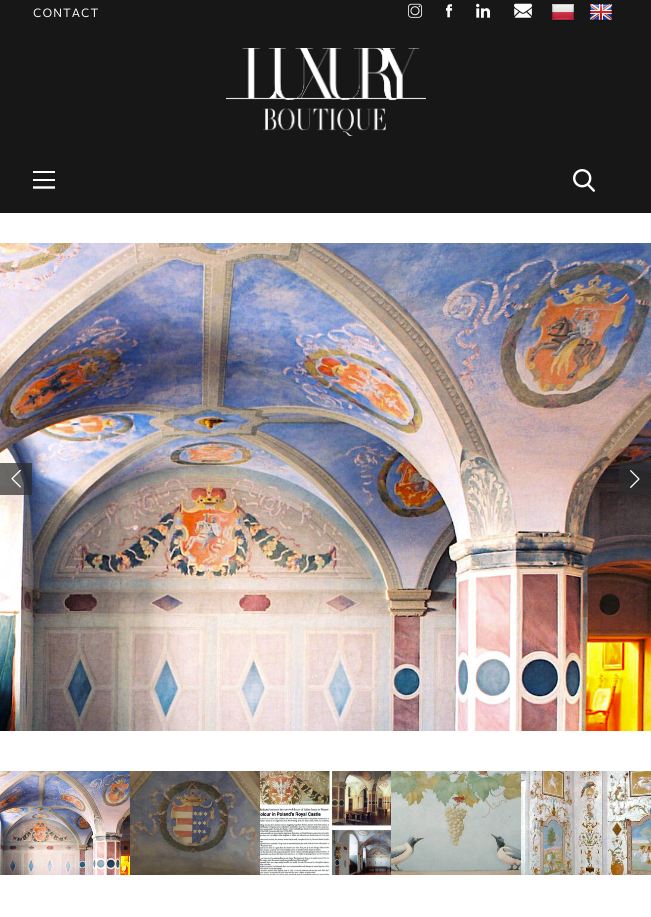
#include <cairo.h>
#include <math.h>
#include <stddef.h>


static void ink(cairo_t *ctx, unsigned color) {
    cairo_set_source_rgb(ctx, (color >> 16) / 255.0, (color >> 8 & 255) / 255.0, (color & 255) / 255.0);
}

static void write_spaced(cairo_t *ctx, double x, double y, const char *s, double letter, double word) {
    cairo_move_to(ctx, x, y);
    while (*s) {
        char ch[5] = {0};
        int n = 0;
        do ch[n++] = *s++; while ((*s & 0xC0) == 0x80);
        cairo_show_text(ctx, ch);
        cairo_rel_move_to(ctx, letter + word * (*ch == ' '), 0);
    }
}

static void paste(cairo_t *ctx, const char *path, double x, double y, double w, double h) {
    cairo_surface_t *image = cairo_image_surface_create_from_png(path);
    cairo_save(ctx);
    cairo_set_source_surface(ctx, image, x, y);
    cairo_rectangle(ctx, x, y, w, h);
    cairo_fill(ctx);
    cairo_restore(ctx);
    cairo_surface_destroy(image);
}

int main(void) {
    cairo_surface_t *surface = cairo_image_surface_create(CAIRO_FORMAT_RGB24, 651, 917);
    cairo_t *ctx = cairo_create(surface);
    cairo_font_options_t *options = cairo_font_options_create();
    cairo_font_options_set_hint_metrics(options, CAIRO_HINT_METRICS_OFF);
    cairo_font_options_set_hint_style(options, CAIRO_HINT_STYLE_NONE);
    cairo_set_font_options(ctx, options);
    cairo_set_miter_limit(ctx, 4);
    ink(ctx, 0xFFFFFF);
    cairo_paint(ctx);
    ink(ctx, 0x171717);
    cairo_rectangle(ctx, 0, 0, 651, 213);
    cairo_fill(ctx);
    cairo_select_font_face(ctx, "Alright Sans", CAIRO_FONT_SLANT_NORMAL, CAIRO_FONT_WEIGHT_NORMAL);
    cairo_set_font_size(ctx, 12);
    ink(ctx, 0xFFFFFF);
    write_spaced(ctx, 33, 17, "CONTACT", 1, 0);
    paste(ctx, "media/1.png", 408, 3, 15, 15);
    paste(ctx, "media/2.png", 446, 4, 7, 14);
    paste(ctx, "media/3.png", 476, 3, 14, 15);
    paste(ctx, "media/4.png", 514, 3, 19, 15);
    paste(ctx, "media/5.png", 552, 4, 22, 17);
    paste(ctx, "media/6.png", 590, 4, 22, 17);
    paste(ctx, "media/7.png", 226, 48, 200, 88);
    cairo_rectangle(ctx, 33, 171, 22, 2);
    cairo_fill(ctx);
    cairo_rectangle(ctx, 33, 179, 22, 2);
    cairo_fill(ctx);
    cairo_new_path(ctx);
    cairo_move_to(ctx, 33, 187.5);
    cairo_line_to(ctx, 55, 187.5);
    cairo_set_line_width(ctx, 2.4);
    cairo_stroke(ctx);
    paste(ctx, "media/8.png", 573, 169, 22, 23);
    paste(ctx, "media/9.png", 0, 243, 651, 488);
    cairo_set_source_rgba(ctx, 0.169, 0.169, 0.169, 0.7);
    cairo_rectangle(ctx, 0, 463, 32, 32);
    cairo_fill(ctx);
    paste(ctx, "media/10.png", 11, 470, 10, 18);
    cairo_rectangle(ctx, 619, 463, 32, 32);
    cairo_fill(ctx);
    paste(ctx, "media/11.png", 630, 470, 10, 18);
    paste(ctx, "media/12.png", 0, 771, 130, 104);
    paste(ctx, "media/13.png", 130, 771, 130, 104);
    paste(ctx, "media/14.png", 260, 771, 131, 104);
    paste(ctx, "media/15.png", 391, 771, 130, 104);
    paste(ctx, "media/16.png", 521, 771, 130, 104);
    cairo_surface_write_to_png(surface, "image.png");
    cairo_font_options_destroy(options);
    cairo_destroy(ctx);
    cairo_surface_destroy(surface);
    return 0;
}
